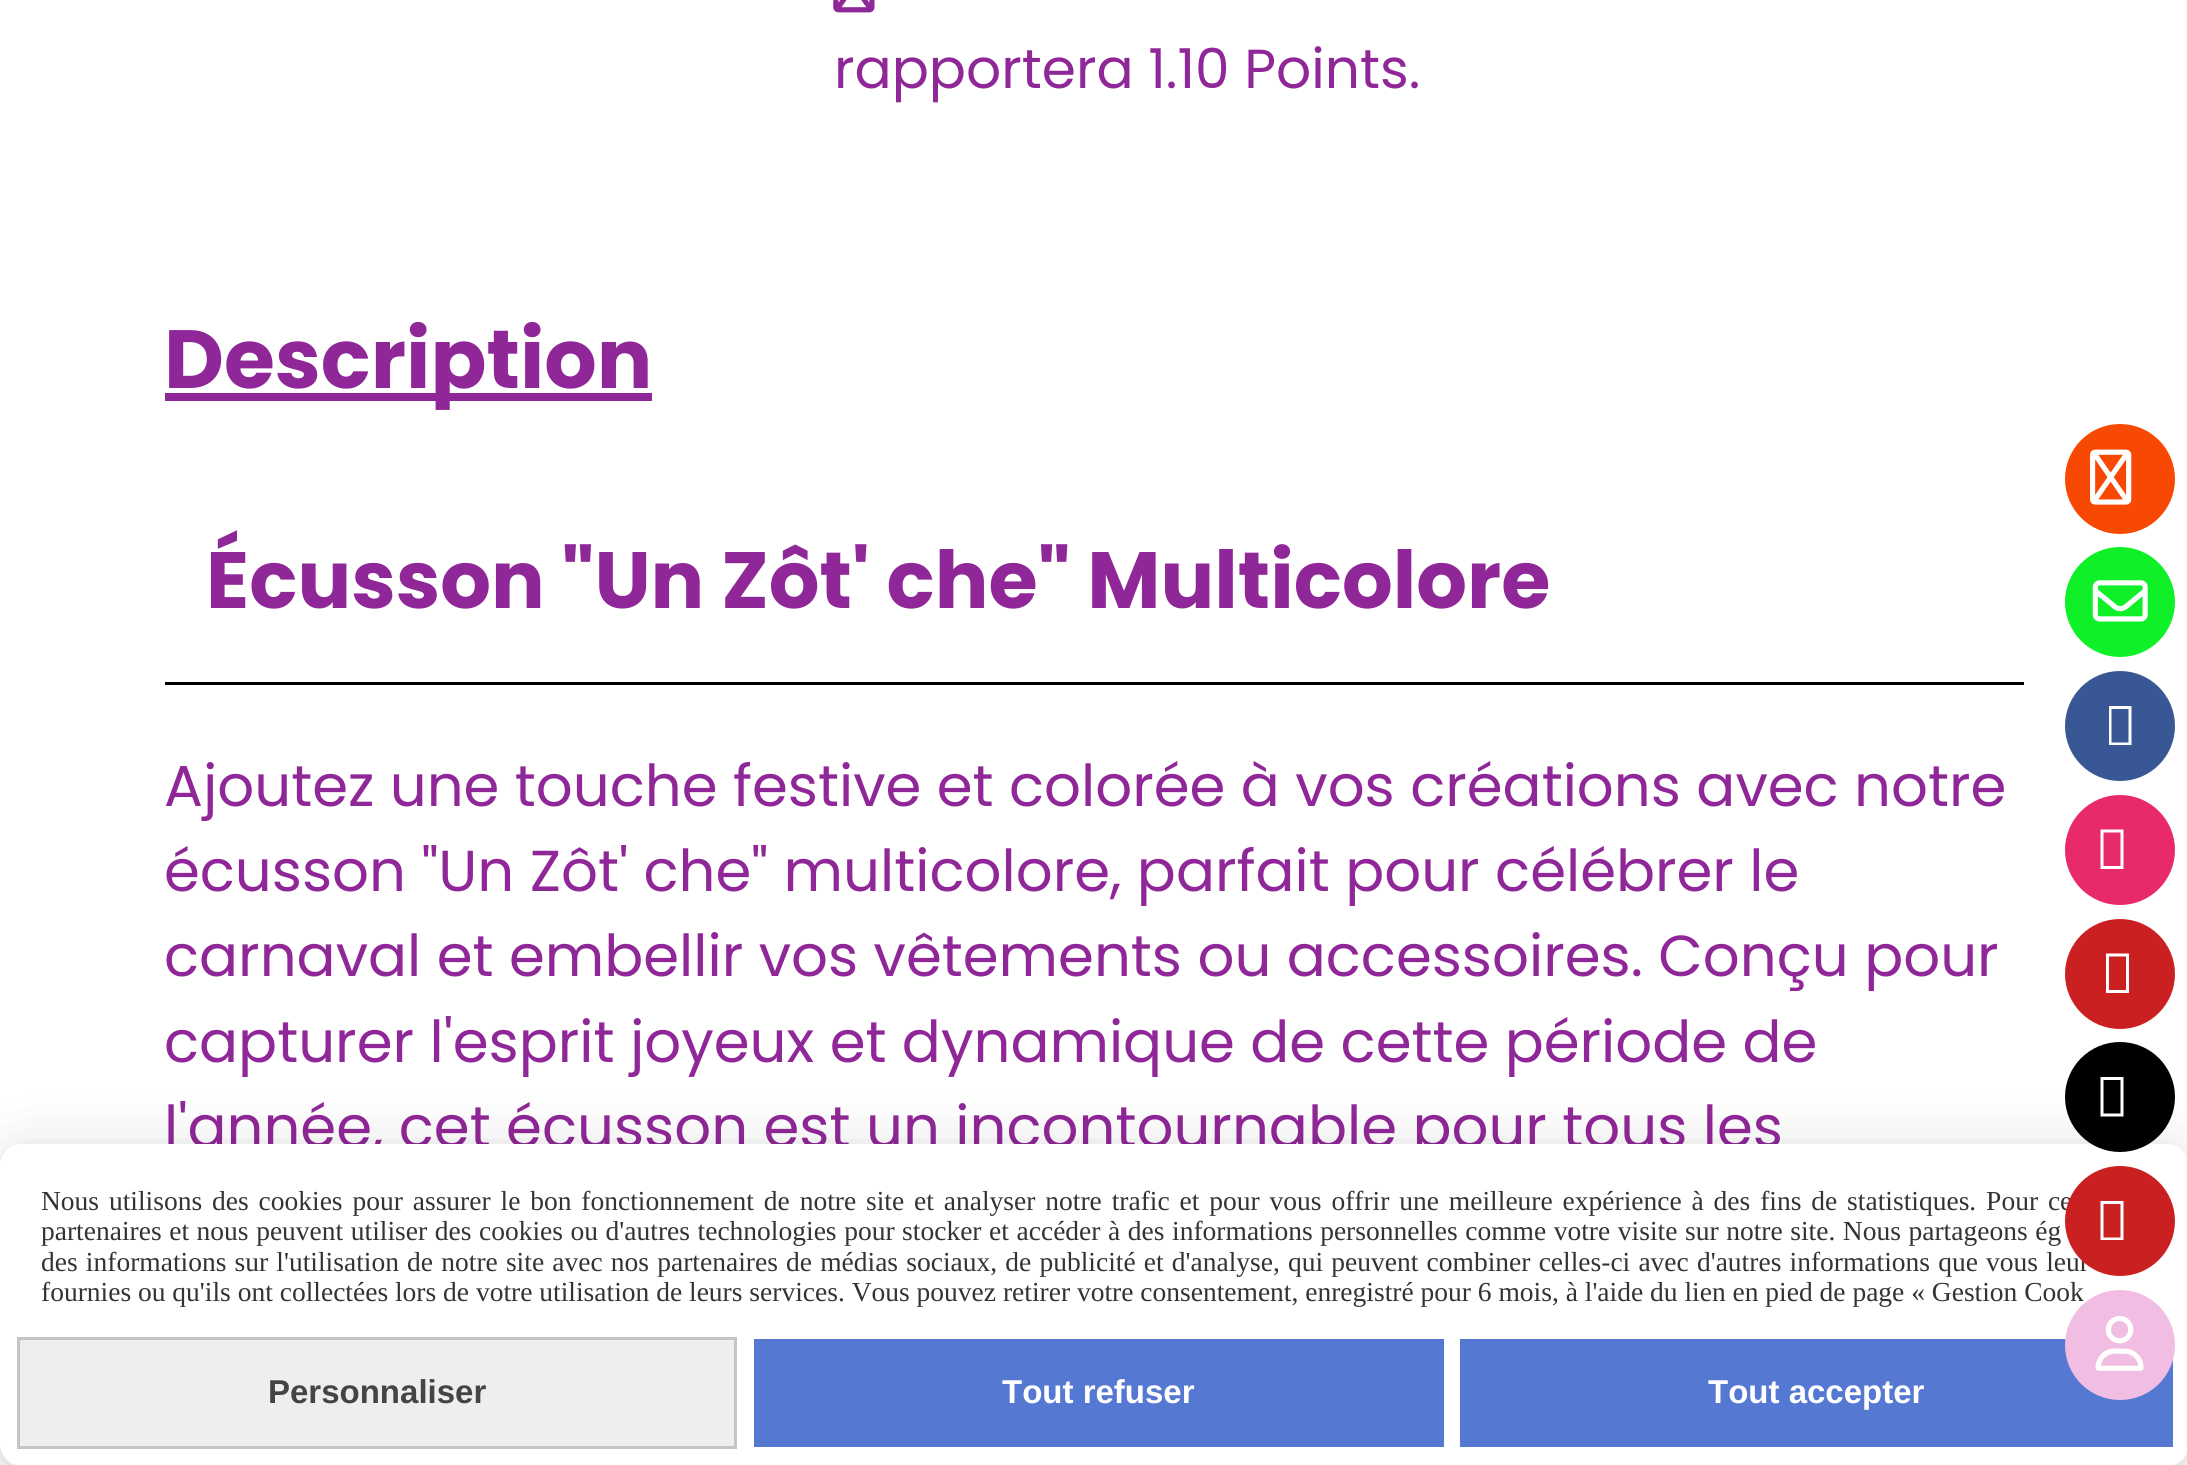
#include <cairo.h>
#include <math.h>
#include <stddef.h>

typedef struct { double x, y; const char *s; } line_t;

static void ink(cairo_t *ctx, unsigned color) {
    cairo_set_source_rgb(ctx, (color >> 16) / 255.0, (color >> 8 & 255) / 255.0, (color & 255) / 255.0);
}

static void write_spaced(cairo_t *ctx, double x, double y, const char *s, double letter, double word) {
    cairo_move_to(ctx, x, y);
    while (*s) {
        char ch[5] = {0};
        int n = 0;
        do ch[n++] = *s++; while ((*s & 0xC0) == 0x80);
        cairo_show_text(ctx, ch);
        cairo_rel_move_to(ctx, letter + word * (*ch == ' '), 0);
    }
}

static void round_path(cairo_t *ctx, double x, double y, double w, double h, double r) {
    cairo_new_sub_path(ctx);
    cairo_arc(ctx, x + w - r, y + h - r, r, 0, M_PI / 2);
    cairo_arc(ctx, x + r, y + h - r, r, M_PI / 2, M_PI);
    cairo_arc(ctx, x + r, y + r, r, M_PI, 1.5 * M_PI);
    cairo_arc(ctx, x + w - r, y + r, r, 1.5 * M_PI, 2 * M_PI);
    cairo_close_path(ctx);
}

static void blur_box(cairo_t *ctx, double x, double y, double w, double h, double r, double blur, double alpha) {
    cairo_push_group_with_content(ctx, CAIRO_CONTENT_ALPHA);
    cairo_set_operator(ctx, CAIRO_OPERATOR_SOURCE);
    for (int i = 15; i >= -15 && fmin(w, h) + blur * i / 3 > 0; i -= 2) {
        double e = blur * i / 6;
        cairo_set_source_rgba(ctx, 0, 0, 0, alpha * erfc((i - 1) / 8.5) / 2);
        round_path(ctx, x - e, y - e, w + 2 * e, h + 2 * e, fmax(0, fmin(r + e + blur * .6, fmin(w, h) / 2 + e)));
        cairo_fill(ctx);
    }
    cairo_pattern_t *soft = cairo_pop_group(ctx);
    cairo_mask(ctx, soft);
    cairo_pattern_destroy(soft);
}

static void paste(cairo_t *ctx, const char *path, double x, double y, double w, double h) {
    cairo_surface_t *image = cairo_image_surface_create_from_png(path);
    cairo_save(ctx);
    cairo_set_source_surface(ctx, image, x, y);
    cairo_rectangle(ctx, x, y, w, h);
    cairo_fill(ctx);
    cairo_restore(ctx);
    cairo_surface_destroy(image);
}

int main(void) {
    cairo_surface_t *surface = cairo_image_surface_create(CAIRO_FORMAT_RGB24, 2187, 1465);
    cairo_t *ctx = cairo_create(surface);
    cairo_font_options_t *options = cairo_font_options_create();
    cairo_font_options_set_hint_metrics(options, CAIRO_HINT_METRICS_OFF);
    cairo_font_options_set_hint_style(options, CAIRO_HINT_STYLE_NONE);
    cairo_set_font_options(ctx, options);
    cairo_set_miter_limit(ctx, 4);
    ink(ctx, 0xFFFFFF);
    cairo_paint(ctx);
    paste(ctx, "media/1.png", 833, 0, 42, 13);
    cairo_select_font_face(ctx, "Poppins", CAIRO_FONT_SLANT_NORMAL, CAIRO_FONT_WEIGHT_NORMAL);
    cairo_set_font_size(ctx, 55);
    ink(ctx, 0x902798);
    cairo_move_to(ctx, 834, 88);
    cairo_show_text(ctx, "rapportera 1.10 Points.");
    cairo_rectangle(ctx, 165, 393, 487, 8);
    cairo_fill(ctx);
    cairo_select_font_face(ctx, "Poppins", CAIRO_FONT_SLANT_NORMAL, CAIRO_FONT_WEIGHT_BOLD);
    cairo_set_font_size(ctx, 82.5);
    cairo_move_to(ctx, 164, 388);
    cairo_show_text(ctx, "Description");
    ink(ctx, 0x000000);
    cairo_rectangle(ctx, 165, 682, 1859, 3);
    cairo_fill(ctx);
    cairo_set_font_size(ctx, 79.75);
    ink(ctx, 0x902798);
    cairo_move_to(ctx, 206, 608);
    cairo_show_text(ctx, "Écusson \"Un Zôt' che\" Multicolore");
    cairo_select_font_face(ctx, "Poppins", CAIRO_FONT_SLANT_NORMAL, CAIRO_FONT_WEIGHT_NORMAL);
    cairo_set_font_size(ctx, 57.75);
    {
        static const line_t items[] = {
            {164, 806, "Ajoutez une touche festive et colorée à vos créations avec notre"},
            {164, 891, "écusson \"Un Zôt' che\" multicolore, parfait pour célébrer le"},
            {164, 976, "carnaval et embellir vos vêtements ou accessoires. Conçu pour"},
            {164, 1062, "capturer l'esprit joyeux et dynamique de cette période de"},
            {164, 1147, "l'année, cet écusson est un incontournable pour tous les"},
        };
        for (size_t i = 0; i < sizeof items / sizeof *items; i++) {
            cairo_move_to(ctx, items[i].x, items[i].y);
            cairo_show_text(ctx, items[i].s);
        }
    }
    ink(ctx, 0xF74903);
    cairo_new_path(ctx);
    cairo_arc(ctx, 2120, 479, 55, 0, 2 * M_PI);
    cairo_fill(ctx);
    paste(ctx, "media/2.png", 2090, 449, 42, 56);
    ink(ctx, 0x0FF029);
    cairo_arc(ctx, 2120, 602, 55, 0, 2 * M_PI);
    cairo_fill(ctx);
    paste(ctx, "media/3.png", 2092, 580, 56, 42);
    ink(ctx, 0x3A5795);
    cairo_arc(ctx, 2120, 726, 55, 0, 2 * M_PI);
    cairo_fill(ctx);
    ink(ctx, 0xFFFFFF);
    cairo_new_path(ctx);
    cairo_move_to(ctx, 2109, 745);
    cairo_line_to(ctx, 2109, 706);
    cairo_line_to(ctx, 2131.5, 706);
    cairo_line_to(ctx, 2131.5, 745);
    cairo_close_path(ctx);
    cairo_move_to(ctx, 2111.5, 742.5);
    cairo_line_to(ctx, 2128.5, 742.5);
    cairo_line_to(ctx, 2128.5, 709);
    cairo_line_to(ctx, 2111.5, 709);
    cairo_close_path(ctx);
    cairo_fill(ctx);
    ink(ctx, 0xE8296A);
    cairo_arc(ctx, 2120, 850, 55, 0, 2 * M_PI);
    cairo_fill(ctx);
    ink(ctx, 0xFFFFFF);
    cairo_new_path(ctx);
    cairo_move_to(ctx, 2100.5, 869);
    cairo_line_to(ctx, 2100.5, 829.5);
    cairo_line_to(ctx, 2123.5, 829.5);
    cairo_line_to(ctx, 2123.5, 869);
    cairo_close_path(ctx);
    cairo_move_to(ctx, 2103.5, 866);
    cairo_line_to(ctx, 2120.5, 866);
    cairo_line_to(ctx, 2120.5, 832.5);
    cairo_line_to(ctx, 2103.5, 832.5);
    cairo_close_path(ctx);
    cairo_fill(ctx);
    ink(ctx, 0xCB2021);
    cairo_arc(ctx, 2120, 974, 55, 0, 2 * M_PI);
    cairo_fill(ctx);
    ink(ctx, 0xFFFFFF);
    cairo_new_path(ctx);
    cairo_move_to(ctx, 2106, 993);
    cairo_line_to(ctx, 2106, 953.5);
    cairo_line_to(ctx, 2129, 953.5);
    cairo_line_to(ctx, 2129, 993);
    cairo_close_path(ctx);
    cairo_move_to(ctx, 2109, 990);
    cairo_line_to(ctx, 2126, 990);
    cairo_line_to(ctx, 2126, 956.5);
    cairo_line_to(ctx, 2109, 956.5);
    cairo_close_path(ctx);
    cairo_fill(ctx);
    ink(ctx, 0x000000);
    blur_box(ctx, 0, 1150, 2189, 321, 22, 8, 0.05);
    blur_box(ctx, 0, 1155, 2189, 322, 22, 33, 0.15);
    ink(ctx, 0xFFFFFF);
    round_path(ctx, 0, 1144, 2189, 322, 22);
    cairo_fill(ctx);
    ink(ctx, 0x000000);
    cairo_arc(ctx, 2120, 1097, 55, 0, 2 * M_PI);
    cairo_fill(ctx);
    ink(ctx, 0xFFFFFF);
    cairo_new_path(ctx);
    cairo_move_to(ctx, 2100.5, 1116.5);
    cairo_line_to(ctx, 2100.5, 1077);
    cairo_line_to(ctx, 2123.5, 1077);
    cairo_line_to(ctx, 2123.5, 1116.5);
    cairo_close_path(ctx);
    cairo_move_to(ctx, 2103.5, 1113.5);
    cairo_line_to(ctx, 2120.5, 1113.5);
    cairo_line_to(ctx, 2120.5, 1080);
    cairo_line_to(ctx, 2103.5, 1080);
    cairo_close_path(ctx);
    cairo_fill(ctx);
    cairo_select_font_face(ctx, "Liberation Serif", CAIRO_FONT_SLANT_NORMAL, CAIRO_FONT_WEIGHT_NORMAL);
    cairo_set_font_size(ctx, 27.5);
    ink(ctx, 0x333333);
    write_spaced(ctx, 41, 1210, "Nous utilisons des cookies pour assurer le bon fonctionnement de notre site et analyser notre trafic et pour vous offrir une meilleure expérience à des fins de statistiques. Pour ce", 0, 3);
    write_spaced(ctx, 41, 1271, "des informations sur l'utilisation de notre site avec nos partenaires de médias sociaux, de publicité et d'analyse, qui peuvent combiner celles-ci avec d'autres informations que vous leur", 0, 1.3);
    ink(ctx, 0xCB2021);
    cairo_new_path(ctx);
    cairo_arc(ctx, 2120, 1221, 55, 0, 2 * M_PI);
    cairo_fill(ctx);
    ink(ctx, 0xFFFFFF);
    cairo_new_path(ctx);
    cairo_move_to(ctx, 2100.5, 1240);
    cairo_line_to(ctx, 2100.5, 1201);
    cairo_line_to(ctx, 2123.5, 1201);
    cairo_line_to(ctx, 2123.5, 1240);
    cairo_close_path(ctx);
    cairo_move_to(ctx, 2103.5, 1237.5);
    cairo_line_to(ctx, 2120.5, 1237.5);
    cairo_line_to(ctx, 2120.5, 1204);
    cairo_line_to(ctx, 2103.5, 1204);
    cairo_close_path(ctx);
    cairo_fill(ctx);
    ink(ctx, 0x333333);
    cairo_move_to(ctx, 41, 1301);
    cairo_show_text(ctx, "fournies ou qu'ils ont collectées lors de votre utilisation de leurs services. Vous pouvez retirer votre consentement, enregistré pour 6 mois, à l'aide du lien en pied de page « Gestion Cook");
    ink(ctx, 0x5579D2);
    cairo_rectangle(ctx, 1460, 1339, 713, 108);
    cairo_fill(ctx);
    ink(ctx, 0xF2BDE2);
    cairo_arc(ctx, 2120, 1345, 55, 0, 2 * M_PI);
    cairo_fill(ctx);
    paste(ctx, "media/4.png", 2095, 1315, 49, 56);
    ink(ctx, 0x333333);
    write_spaced(ctx, 41, 1240, "partenaires et nous peuvent utiliser des cookies ou d'autres technologies pour stocker et accéder à des informations personnelles comme votre visite sur notre site. Nous partageons ég", 0, 0.7);
    ink(ctx, 0xEEEEEE);
    cairo_rectangle(ctx, 18.5, 1338.5, 717, 109);
    cairo_fill_preserve(ctx);
    ink(ctx, 0xC5C5C5);
    cairo_set_line_width(ctx, 3);
    cairo_stroke(ctx);
    cairo_select_font_face(ctx, "Liberation Sans", CAIRO_FONT_SLANT_NORMAL, CAIRO_FONT_WEIGHT_BOLD);
    cairo_set_font_size(ctx, 33);
    ink(ctx, 0x444444);
    cairo_move_to(ctx, 268, 1403);
    cairo_show_text(ctx, "Personnaliser");
    ink(ctx, 0x5579D2);
    cairo_rectangle(ctx, 754, 1339, 690, 108);
    cairo_fill(ctx);
    ink(ctx, 0xFFFFFF);
    cairo_move_to(ctx, 1002, 1403);
    cairo_show_text(ctx, "Tout refuser");
    cairo_move_to(ctx, 1708, 1403);
    cairo_show_text(ctx, "Tout accepter");
    cairo_surface_write_to_png(surface, "image.png");
    cairo_font_options_destroy(options);
    cairo_destroy(ctx);
    cairo_surface_destroy(surface);
    return 0;
}
